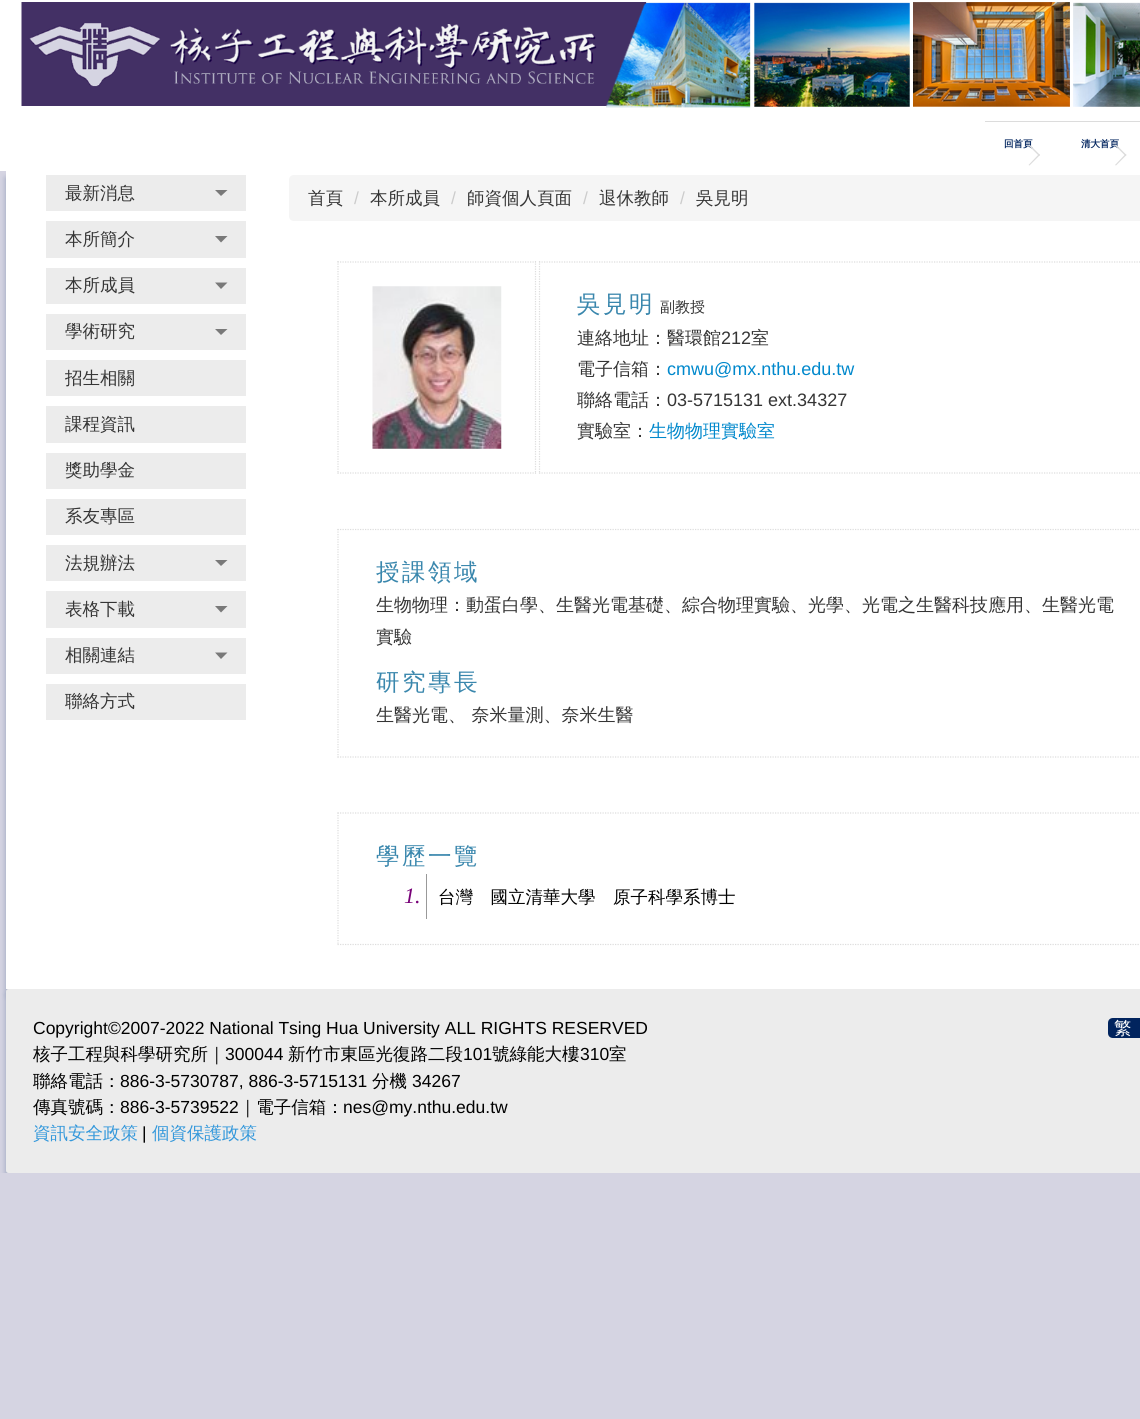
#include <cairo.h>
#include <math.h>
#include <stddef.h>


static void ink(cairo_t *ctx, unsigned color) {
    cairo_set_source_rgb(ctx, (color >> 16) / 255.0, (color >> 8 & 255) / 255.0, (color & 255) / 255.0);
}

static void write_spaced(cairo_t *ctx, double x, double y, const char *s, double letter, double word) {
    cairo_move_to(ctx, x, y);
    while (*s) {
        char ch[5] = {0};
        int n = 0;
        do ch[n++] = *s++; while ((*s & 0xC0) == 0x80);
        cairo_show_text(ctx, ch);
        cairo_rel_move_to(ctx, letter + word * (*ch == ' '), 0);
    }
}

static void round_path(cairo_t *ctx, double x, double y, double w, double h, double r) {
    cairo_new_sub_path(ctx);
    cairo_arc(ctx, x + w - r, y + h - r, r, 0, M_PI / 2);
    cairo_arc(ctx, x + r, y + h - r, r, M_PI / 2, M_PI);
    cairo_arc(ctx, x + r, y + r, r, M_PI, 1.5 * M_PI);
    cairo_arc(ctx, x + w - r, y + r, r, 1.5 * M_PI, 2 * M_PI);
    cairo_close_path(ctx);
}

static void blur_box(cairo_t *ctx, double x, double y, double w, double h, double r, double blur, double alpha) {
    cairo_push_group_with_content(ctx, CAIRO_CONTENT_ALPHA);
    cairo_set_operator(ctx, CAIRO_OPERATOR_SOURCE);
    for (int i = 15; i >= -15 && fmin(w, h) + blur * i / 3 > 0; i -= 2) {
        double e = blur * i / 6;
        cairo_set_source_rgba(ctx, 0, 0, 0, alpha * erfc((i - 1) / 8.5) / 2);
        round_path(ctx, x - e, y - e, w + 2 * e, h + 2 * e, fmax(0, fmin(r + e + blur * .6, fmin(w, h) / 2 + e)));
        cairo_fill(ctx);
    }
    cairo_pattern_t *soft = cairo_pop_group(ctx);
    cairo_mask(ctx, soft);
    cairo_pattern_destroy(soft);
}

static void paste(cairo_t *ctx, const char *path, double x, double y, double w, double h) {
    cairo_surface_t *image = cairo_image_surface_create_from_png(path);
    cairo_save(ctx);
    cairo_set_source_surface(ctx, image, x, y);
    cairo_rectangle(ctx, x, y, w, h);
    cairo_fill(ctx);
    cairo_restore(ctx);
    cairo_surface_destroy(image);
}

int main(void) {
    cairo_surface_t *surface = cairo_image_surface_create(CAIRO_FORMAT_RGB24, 1140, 1419);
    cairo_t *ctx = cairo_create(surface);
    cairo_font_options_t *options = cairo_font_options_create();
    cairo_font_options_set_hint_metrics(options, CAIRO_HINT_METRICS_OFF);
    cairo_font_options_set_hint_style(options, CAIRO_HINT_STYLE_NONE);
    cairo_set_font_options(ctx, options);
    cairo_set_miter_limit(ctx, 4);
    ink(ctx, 0xD5D4E2);
    cairo_paint(ctx);
    ink(ctx, 0x01245E);
    blur_box(ctx, 6, 178, 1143, 817, 0, 3, 0.3);
    ink(ctx, 0xFFFFFF);
    cairo_rectangle(ctx, 0, 0, 1140, 171);
    cairo_fill(ctx);
    paste(ctx, "media/1.png", 21, 2, 1119, 106);
    ink(ctx, 0xDCDCDC);
    cairo_rectangle(ctx, 985, 121, 155, 1);
    cairo_fill(ctx);
    cairo_select_font_face(ctx, "WenQuanYi Zen Hei", CAIRO_FONT_SLANT_NORMAL, CAIRO_FONT_WEIGHT_BOLD);
    cairo_set_font_size(ctx, 9.5);
    ink(ctx, 0x01245E);
    cairo_move_to(ctx, 1004, 147);
    cairo_show_text(ctx, "回首頁");
    ink(ctx, 0xDCDCDC);
    cairo_new_path(ctx);
    cairo_move_to(ctx, 1029.5, 144.5);
    cairo_line_to(ctx, 1040, 155);
    cairo_line_to(ctx, 1039, 156);
    cairo_line_to(ctx, 1028.5, 145.5);
    cairo_close_path(ctx);
    cairo_fill(ctx);
    cairo_new_path(ctx);
    cairo_move_to(ctx, 1039, 154);
    cairo_line_to(ctx, 1040, 155);
    cairo_line_to(ctx, 1029.5, 165.5);
    cairo_line_to(ctx, 1028.5, 165);
    cairo_close_path(ctx);
    cairo_fill(ctx);
    ink(ctx, 0x01245E);
    cairo_move_to(ctx, 1081, 147);
    cairo_show_text(ctx, "清大首頁");
    ink(ctx, 0xDCDCDC);
    cairo_new_path(ctx);
    cairo_move_to(ctx, 1116, 144.5);
    cairo_line_to(ctx, 1126.5, 155);
    cairo_line_to(ctx, 1125.5, 156);
    cairo_line_to(ctx, 1115, 145.5);
    cairo_close_path(ctx);
    cairo_fill(ctx);
    cairo_new_path(ctx);
    cairo_move_to(ctx, 1125.5, 154);
    cairo_line_to(ctx, 1126.5, 155);
    cairo_line_to(ctx, 1116, 165.5);
    cairo_line_to(ctx, 1115, 165);
    cairo_close_path(ctx);
    cairo_fill(ctx);
    ink(ctx, 0xFFFFFF);
    cairo_rectangle(ctx, 6, 171, 1134, 818);
    cairo_fill(ctx);
    ink(ctx, 0xECECEC);
    cairo_rectangle(ctx, 46, 175, 200, 36);
    cairo_fill(ctx);
    cairo_select_font_face(ctx, "WenQuanYi Zen Hei Medium", CAIRO_FONT_SLANT_NORMAL, CAIRO_FONT_WEIGHT_NORMAL);
    cairo_set_font_size(ctx, 17.5);
    ink(ctx, 0x353535);
    cairo_move_to(ctx, 65, 199);
    cairo_show_text(ctx, "最新消息");
    ink(ctx, 0x797979);
    cairo_new_path(ctx);
    cairo_move_to(ctx, 215, 190);
    cairo_line_to(ctx, 227.5, 190);
    cairo_line_to(ctx, 221, 196);
    cairo_close_path(ctx);
    cairo_fill(ctx);
    ink(ctx, 0xECECEC);
    cairo_rectangle(ctx, 46, 221, 200, 37);
    cairo_fill(ctx);
    ink(ctx, 0x353535);
    cairo_move_to(ctx, 65, 245);
    cairo_show_text(ctx, "本所簡介");
    ink(ctx, 0x797979);
    cairo_new_path(ctx);
    cairo_move_to(ctx, 215, 236);
    cairo_line_to(ctx, 227.5, 236);
    cairo_line_to(ctx, 221, 242.5);
    cairo_close_path(ctx);
    cairo_fill(ctx);
    ink(ctx, 0xECECEC);
    cairo_rectangle(ctx, 46, 268, 200, 36);
    cairo_fill(ctx);
    ink(ctx, 0x353535);
    cairo_move_to(ctx, 65, 291);
    cairo_show_text(ctx, "本所成員");
    ink(ctx, 0x797979);
    cairo_new_path(ctx);
    cairo_move_to(ctx, 215, 282.5);
    cairo_line_to(ctx, 227.5, 282.5);
    cairo_line_to(ctx, 221, 289);
    cairo_close_path(ctx);
    cairo_fill(ctx);
    ink(ctx, 0xECECEC);
    cairo_rectangle(ctx, 46, 314, 200, 36);
    cairo_fill(ctx);
    ink(ctx, 0x353535);
    cairo_move_to(ctx, 65, 337);
    cairo_show_text(ctx, "學術研究");
    ink(ctx, 0x797979);
    cairo_new_path(ctx);
    cairo_move_to(ctx, 215, 329);
    cairo_line_to(ctx, 227.5, 329);
    cairo_line_to(ctx, 221, 335);
    cairo_close_path(ctx);
    cairo_fill(ctx);
    ink(ctx, 0xECECEC);
    cairo_rectangle(ctx, 46, 360, 200, 36);
    cairo_fill(ctx);
    ink(ctx, 0x353535);
    cairo_move_to(ctx, 65, 384);
    cairo_show_text(ctx, "招生相關");
    ink(ctx, 0xECECEC);
    cairo_rectangle(ctx, 46, 406, 200, 37);
    cairo_fill(ctx);
    ink(ctx, 0x353535);
    cairo_move_to(ctx, 65, 430);
    cairo_show_text(ctx, "課程資訊");
    ink(ctx, 0xECECEC);
    cairo_rectangle(ctx, 46, 453, 200, 36);
    cairo_fill(ctx);
    ink(ctx, 0x353535);
    cairo_move_to(ctx, 65, 476);
    cairo_show_text(ctx, "獎助學金");
    ink(ctx, 0xECECEC);
    cairo_rectangle(ctx, 46, 499, 200, 36);
    cairo_fill(ctx);
    ink(ctx, 0x353535);
    cairo_move_to(ctx, 65, 522);
    cairo_show_text(ctx, "系友專區");
    ink(ctx, 0xECECEC);
    cairo_rectangle(ctx, 46, 545, 200, 36);
    cairo_fill(ctx);
    ink(ctx, 0x353535);
    cairo_move_to(ctx, 65, 569);
    cairo_show_text(ctx, "法規辦法");
    ink(ctx, 0x797979);
    cairo_new_path(ctx);
    cairo_move_to(ctx, 215, 560);
    cairo_line_to(ctx, 227.5, 560);
    cairo_line_to(ctx, 221, 566);
    cairo_close_path(ctx);
    cairo_fill(ctx);
    ink(ctx, 0xECECEC);
    cairo_rectangle(ctx, 46, 591, 200, 37);
    cairo_fill(ctx);
    ink(ctx, 0x353535);
    cairo_move_to(ctx, 65, 615);
    cairo_show_text(ctx, "表格下載");
    ink(ctx, 0x797979);
    cairo_new_path(ctx);
    cairo_move_to(ctx, 215, 606);
    cairo_line_to(ctx, 227.5, 606);
    cairo_line_to(ctx, 221, 612.5);
    cairo_close_path(ctx);
    cairo_fill(ctx);
    ink(ctx, 0xECECEC);
    cairo_rectangle(ctx, 46, 638, 200, 36);
    cairo_fill(ctx);
    ink(ctx, 0x353535);
    cairo_move_to(ctx, 65, 661);
    cairo_show_text(ctx, "相關連結");
    ink(ctx, 0x797979);
    cairo_new_path(ctx);
    cairo_move_to(ctx, 215, 652.5);
    cairo_line_to(ctx, 227.5, 652.5);
    cairo_line_to(ctx, 221, 659);
    cairo_close_path(ctx);
    cairo_fill(ctx);
    ink(ctx, 0xECECEC);
    cairo_rectangle(ctx, 46, 684, 200, 36);
    cairo_fill(ctx);
    ink(ctx, 0x353535);
    cairo_move_to(ctx, 65, 707);
    cairo_show_text(ctx, "聯絡方式");
    ink(ctx, 0xF5F5F5);
    cairo_new_path(ctx);
    cairo_move_to(ctx, 294, 175);
    cairo_line_to(ctx, 1140, 175);
    cairo_line_to(ctx, 1140, 221);
    cairo_line_to(ctx, 294, 221);
    cairo_curve_to(ctx, 291, 221, 289, 219, 289, 216);
    cairo_line_to(ctx, 289, 180);
    cairo_curve_to(ctx, 289, 177, 291, 175, 294, 175);
    cairo_close_path(ctx);
    cairo_fill(ctx);
    ink(ctx, 0x353535);
    cairo_move_to(ctx, 308, 204);
    cairo_show_text(ctx, "首頁");
    cairo_select_font_face(ctx, "Liberation Sans", CAIRO_FONT_SLANT_NORMAL, CAIRO_FONT_WEIGHT_NORMAL);
    ink(ctx, 0xCCCCCC);
    cairo_move_to(ctx, 354, 204);
    cairo_show_text(ctx, "/");
    cairo_select_font_face(ctx, "WenQuanYi Zen Hei Medium", CAIRO_FONT_SLANT_NORMAL, CAIRO_FONT_WEIGHT_NORMAL);
    ink(ctx, 0x353535);
    cairo_move_to(ctx, 370, 204);
    cairo_show_text(ctx, "本所成員");
    cairo_select_font_face(ctx, "Liberation Sans", CAIRO_FONT_SLANT_NORMAL, CAIRO_FONT_WEIGHT_NORMAL);
    ink(ctx, 0xCCCCCC);
    cairo_move_to(ctx, 451, 204);
    cairo_show_text(ctx, "/");
    cairo_select_font_face(ctx, "WenQuanYi Zen Hei Medium", CAIRO_FONT_SLANT_NORMAL, CAIRO_FONT_WEIGHT_NORMAL);
    ink(ctx, 0x353535);
    cairo_move_to(ctx, 467, 204);
    cairo_show_text(ctx, "師資個人頁面");
    cairo_select_font_face(ctx, "Liberation Sans", CAIRO_FONT_SLANT_NORMAL, CAIRO_FONT_WEIGHT_NORMAL);
    ink(ctx, 0xCCCCCC);
    cairo_move_to(ctx, 583, 204);
    cairo_show_text(ctx, "/");
    cairo_select_font_face(ctx, "WenQuanYi Zen Hei Medium", CAIRO_FONT_SLANT_NORMAL, CAIRO_FONT_WEIGHT_NORMAL);
    ink(ctx, 0x353535);
    cairo_move_to(ctx, 599, 204);
    cairo_show_text(ctx, "退休教師");
    cairo_select_font_face(ctx, "Liberation Sans", CAIRO_FONT_SLANT_NORMAL, CAIRO_FONT_WEIGHT_NORMAL);
    ink(ctx, 0xCCCCCC);
    cairo_move_to(ctx, 680, 204);
    cairo_show_text(ctx, "/");
    cairo_select_font_face(ctx, "WenQuanYi Zen Hei Medium", CAIRO_FONT_SLANT_NORMAL, CAIRO_FONT_WEIGHT_NORMAL);
    ink(ctx, 0x353535);
    cairo_move_to(ctx, 696, 204);
    cairo_show_text(ctx, "吳見明");
    cairo_new_path(ctx);
    cairo_move_to(ctx, 337.5, 262);
    cairo_line_to(ctx, 536, 262);
    ink(ctx, 0xDDDDDD);
    cairo_set_line_width(ctx, 1.2);
    cairo_set_dash(ctx, (double[]){1.25, 1.25}, 2, 0);
    cairo_stroke(ctx);
    cairo_new_path(ctx);
    cairo_move_to(ctx, 535.5, 261);
    cairo_line_to(ctx, 535.5, 474);
    cairo_stroke(ctx);
    cairo_new_path(ctx);
    cairo_move_to(ctx, 337.5, 473);
    cairo_line_to(ctx, 536, 473);
    cairo_stroke(ctx);
    cairo_new_path(ctx);
    cairo_move_to(ctx, 338, 261);
    cairo_line_to(ctx, 338, 474);
    cairo_stroke(ctx);
    paste(ctx, "media/2.png", 372, 286, 130, 163);
    cairo_new_path(ctx);
    cairo_move_to(ctx, 539, 262);
    cairo_line_to(ctx, 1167.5, 262);
    cairo_stroke(ctx);
    cairo_new_path(ctx);
    cairo_move_to(ctx, 539, 473);
    cairo_line_to(ctx, 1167.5, 473);
    cairo_stroke(ctx);
    cairo_new_path(ctx);
    cairo_move_to(ctx, 539.5, 261);
    cairo_line_to(ctx, 539.5, 474);
    cairo_stroke(ctx);
    cairo_set_font_size(ctx, 23.5);
    ink(ctx, 0x3A87AD);
    write_spaced(ctx, 577, 312, "吳見明", 2.5, 0);
    cairo_set_font_size(ctx, 15);
    ink(ctx, 0x353535);
    cairo_move_to(ctx, 660, 312);
    cairo_show_text(ctx, "副教授");
    cairo_set_font_size(ctx, 18);
    cairo_move_to(ctx, 577, 344);
    cairo_show_text(ctx, "連絡地址：醫環館");
    cairo_select_font_face(ctx, "Liberation Sans", CAIRO_FONT_SLANT_NORMAL, CAIRO_FONT_WEIGHT_NORMAL);
    cairo_move_to(ctx, 721, 344);
    cairo_show_text(ctx, "212");
    cairo_select_font_face(ctx, "WenQuanYi Zen Hei Medium", CAIRO_FONT_SLANT_NORMAL, CAIRO_FONT_WEIGHT_NORMAL);
    cairo_move_to(ctx, 751, 344);
    cairo_show_text(ctx, "室");
    cairo_move_to(ctx, 577, 375);
    cairo_show_text(ctx, "電子信箱：");
    cairo_select_font_face(ctx, "Liberation Sans", CAIRO_FONT_SLANT_NORMAL, CAIRO_FONT_WEIGHT_NORMAL);
    ink(ctx, 0x0088CC);
    cairo_move_to(ctx, 667, 375);
    cairo_show_text(ctx, "cmwu@mx.nthu.edu.tw");
    cairo_select_font_face(ctx, "WenQuanYi Zen Hei Medium", CAIRO_FONT_SLANT_NORMAL, CAIRO_FONT_WEIGHT_NORMAL);
    ink(ctx, 0x353535);
    cairo_move_to(ctx, 577, 406);
    cairo_show_text(ctx, "聯絡電話：");
    cairo_select_font_face(ctx, "Liberation Sans", CAIRO_FONT_SLANT_NORMAL, CAIRO_FONT_WEIGHT_NORMAL);
    cairo_move_to(ctx, 667, 406);
    cairo_show_text(ctx, "03-5715131 ext.34327");
    cairo_select_font_face(ctx, "WenQuanYi Zen Hei Medium", CAIRO_FONT_SLANT_NORMAL, CAIRO_FONT_WEIGHT_NORMAL);
    cairo_move_to(ctx, 577, 437);
    cairo_show_text(ctx, "實驗室：");
    ink(ctx, 0x0088CC);
    cairo_move_to(ctx, 649, 437);
    cairo_show_text(ctx, "生物物理實驗室");
    cairo_new_path(ctx);
    cairo_move_to(ctx, 337.5, 529.5);
    cairo_line_to(ctx, 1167.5, 529.5);
    ink(ctx, 0xDDDDDD);
    cairo_stroke(ctx);
    cairo_new_path(ctx);
    cairo_move_to(ctx, 337.5, 757);
    cairo_line_to(ctx, 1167.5, 757);
    cairo_stroke(ctx);
    cairo_new_path(ctx);
    cairo_move_to(ctx, 338, 529);
    cairo_line_to(ctx, 338, 757.5);
    cairo_stroke(ctx);
    cairo_set_font_size(ctx, 23.5);
    ink(ctx, 0x3A87AD);
    write_spaced(ctx, 376, 580, "授課領域", 2.5, 0);
    cairo_set_font_size(ctx, 18);
    ink(ctx, 0x353535);
    cairo_move_to(ctx, 376, 611);
    cairo_show_text(ctx, "生物物理：動蛋白學、生醫光電基礎、綜合物理實驗、光學、光電之生醫科技應用、生醫光電");
    cairo_move_to(ctx, 376, 643);
    cairo_show_text(ctx, "實驗");
    cairo_set_font_size(ctx, 23.5);
    ink(ctx, 0x3A87AD);
    write_spaced(ctx, 376, 690, "研究專長", 2.5, 0);
    cairo_set_font_size(ctx, 18);
    ink(ctx, 0x353535);
    cairo_move_to(ctx, 376, 721);
    cairo_show_text(ctx, "生醫光電、 奈米量測、奈米生醫");
    cairo_new_path(ctx);
    cairo_move_to(ctx, 337.5, 813);
    cairo_line_to(ctx, 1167.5, 813);
    ink(ctx, 0xDDDDDD);
    cairo_stroke(ctx);
    cairo_new_path(ctx);
    cairo_move_to(ctx, 337.5, 944.5);
    cairo_line_to(ctx, 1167.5, 944.5);
    cairo_stroke(ctx);
    cairo_new_path(ctx);
    cairo_move_to(ctx, 338, 812.5);
    cairo_line_to(ctx, 338, 945);
    cairo_stroke(ctx);
    cairo_set_font_size(ctx, 23.5);
    ink(ctx, 0x3A87AD);
    write_spaced(ctx, 376, 864, "學歷一覽", 2.5, 0);
    cairo_select_font_face(ctx, "Liberation Serif", CAIRO_FONT_SLANT_ITALIC, CAIRO_FONT_WEIGHT_NORMAL);
    cairo_set_font_size(ctx, 22);
    ink(ctx, 0x770077);
    cairo_move_to(ctx, 404, 903);
    cairo_show_text(ctx, "1.");
    ink(ctx, 0x999999);
    cairo_rectangle(ctx, 426, 874, 1, 45);
    cairo_fill(ctx);
    cairo_select_font_face(ctx, "WenQuanYi Zen Hei Medium", CAIRO_FONT_SLANT_NORMAL, CAIRO_FONT_WEIGHT_NORMAL);
    cairo_set_font_size(ctx, 17.5);
    ink(ctx, 0x000000);
    cairo_move_to(ctx, 438, 903);
    cairo_show_text(ctx, "台灣　國立清華大學　原子科學系博士");
    cairo_save(ctx);
    cairo_rectangle(ctx, 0, 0, 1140, 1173);
    cairo_clip(ctx);
    ink(ctx, 0x01245E);
    blur_box(ctx, 6, 995, 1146, 184, 2.5, 3, 0.3);
    cairo_restore(ctx);
    ink(ctx, 0xECECEC);
    cairo_new_path(ctx);
    cairo_move_to(ctx, 8.5, 989);
    cairo_line_to(ctx, 1140, 989);
    cairo_line_to(ctx, 1140, 1173);
    cairo_line_to(ctx, 8.5, 1173);
    cairo_curve_to(ctx, 7, 1173, 6, 1172, 6, 1170.5);
    cairo_line_to(ctx, 6, 991.5);
    cairo_curve_to(ctx, 6, 990, 7, 989, 8.5, 989);
    cairo_close_path(ctx);
    cairo_fill(ctx);
    cairo_select_font_face(ctx, "Liberation Sans", CAIRO_FONT_SLANT_NORMAL, CAIRO_FONT_WEIGHT_NORMAL);
    ink(ctx, 0x000000);
    cairo_move_to(ctx, 33, 1034);
    cairo_show_text(ctx, "Copyright©2007-2022 National Tsing Hua University ALL RIGHTS RESERVED");
    cairo_select_font_face(ctx, "WenQuanYi Zen Hei Medium", CAIRO_FONT_SLANT_NORMAL, CAIRO_FONT_WEIGHT_NORMAL);
    cairo_move_to(ctx, 33, 1060);
    cairo_show_text(ctx, "核子工程與科學研究所｜");
    cairo_select_font_face(ctx, "Liberation Sans", CAIRO_FONT_SLANT_NORMAL, CAIRO_FONT_WEIGHT_NORMAL);
    cairo_move_to(ctx, 225, 1060);
    cairo_show_text(ctx, "300044");
    cairo_select_font_face(ctx, "WenQuanYi Zen Hei Medium", CAIRO_FONT_SLANT_NORMAL, CAIRO_FONT_WEIGHT_NORMAL);
    cairo_move_to(ctx, 288, 1060);
    cairo_show_text(ctx, "新竹市東區光復路二段");
    cairo_select_font_face(ctx, "Liberation Sans", CAIRO_FONT_SLANT_NORMAL, CAIRO_FONT_WEIGHT_NORMAL);
    cairo_move_to(ctx, 463, 1060);
    cairo_show_text(ctx, "101");
    cairo_select_font_face(ctx, "WenQuanYi Zen Hei Medium", CAIRO_FONT_SLANT_NORMAL, CAIRO_FONT_WEIGHT_NORMAL);
    cairo_move_to(ctx, 492, 1060);
    cairo_show_text(ctx, "號綠能大樓");
    cairo_select_font_face(ctx, "Liberation Sans", CAIRO_FONT_SLANT_NORMAL, CAIRO_FONT_WEIGHT_NORMAL);
    cairo_move_to(ctx, 580, 1060);
    cairo_show_text(ctx, "310");
    cairo_select_font_face(ctx, "WenQuanYi Zen Hei Medium", CAIRO_FONT_SLANT_NORMAL, CAIRO_FONT_WEIGHT_NORMAL);
    cairo_move_to(ctx, 609, 1060);
    cairo_show_text(ctx, "室");
    cairo_move_to(ctx, 33, 1087);
    cairo_show_text(ctx, "聯絡電話：");
    cairo_select_font_face(ctx, "Liberation Sans", CAIRO_FONT_SLANT_NORMAL, CAIRO_FONT_WEIGHT_NORMAL);
    cairo_move_to(ctx, 120, 1087);
    cairo_show_text(ctx, "886-3-5730787, 886-3-5715131");
    cairo_select_font_face(ctx, "WenQuanYi Zen Hei Medium", CAIRO_FONT_SLANT_NORMAL, CAIRO_FONT_WEIGHT_NORMAL);
    cairo_move_to(ctx, 372, 1087);
    cairo_show_text(ctx, "分機");
    cairo_select_font_face(ctx, "Liberation Sans", CAIRO_FONT_SLANT_NORMAL, CAIRO_FONT_WEIGHT_NORMAL);
    cairo_move_to(ctx, 412, 1087);
    cairo_show_text(ctx, "34267");
    cairo_select_font_face(ctx, "WenQuanYi Zen Hei Medium", CAIRO_FONT_SLANT_NORMAL, CAIRO_FONT_WEIGHT_NORMAL);
    cairo_move_to(ctx, 33, 1113);
    cairo_show_text(ctx, "傳真號碼：");
    cairo_select_font_face(ctx, "Liberation Sans", CAIRO_FONT_SLANT_NORMAL, CAIRO_FONT_WEIGHT_NORMAL);
    cairo_move_to(ctx, 120, 1113);
    cairo_show_text(ctx, "886-3-5739522");
    cairo_select_font_face(ctx, "WenQuanYi Zen Hei Medium", CAIRO_FONT_SLANT_NORMAL, CAIRO_FONT_WEIGHT_NORMAL);
    cairo_move_to(ctx, 239, 1113);
    cairo_show_text(ctx, "｜電子信箱：");
    cairo_select_font_face(ctx, "Liberation Sans", CAIRO_FONT_SLANT_NORMAL, CAIRO_FONT_WEIGHT_NORMAL);
    cairo_move_to(ctx, 343, 1113);
    cairo_show_text(ctx, "nes@my.nthu.edu.tw");
    cairo_select_font_face(ctx, "WenQuanYi Zen Hei Medium", CAIRO_FONT_SLANT_NORMAL, CAIRO_FONT_WEIGHT_NORMAL);
    ink(ctx, 0x3498DB);
    cairo_move_to(ctx, 33, 1139);
    cairo_show_text(ctx, "資訊安全政策");
    cairo_select_font_face(ctx, "Liberation Sans", CAIRO_FONT_SLANT_NORMAL, CAIRO_FONT_WEIGHT_NORMAL);
    ink(ctx, 0x000000);
    cairo_move_to(ctx, 142, 1139);
    cairo_show_text(ctx, "|");
    cairo_select_font_face(ctx, "WenQuanYi Zen Hei Medium", CAIRO_FONT_SLANT_NORMAL, CAIRO_FONT_WEIGHT_NORMAL);
    ink(ctx, 0x3498DB);
    cairo_move_to(ctx, 152, 1139);
    cairo_show_text(ctx, "個資保護政策");
    ink(ctx, 0x01245E);
    cairo_new_path(ctx);
    cairo_move_to(ctx, 1113, 1018);
    cairo_line_to(ctx, 1140, 1018);
    cairo_line_to(ctx, 1140, 1038);
    cairo_line_to(ctx, 1113, 1038);
    cairo_curve_to(ctx, 1110, 1038, 1108, 1036, 1108, 1033);
    cairo_line_to(ctx, 1108, 1023);
    cairo_curve_to(ctx, 1108, 1020, 1110, 1018, 1113, 1018);
    cairo_close_path(ctx);
    cairo_fill(ctx);
    ink(ctx, 0xFFFFFF);
    cairo_move_to(ctx, 1114, 1034);
    cairo_show_text(ctx, "繁");
    cairo_surface_write_to_png(surface, "image.png");
    cairo_font_options_destroy(options);
    cairo_destroy(ctx);
    cairo_surface_destroy(surface);
    return 0;
}
